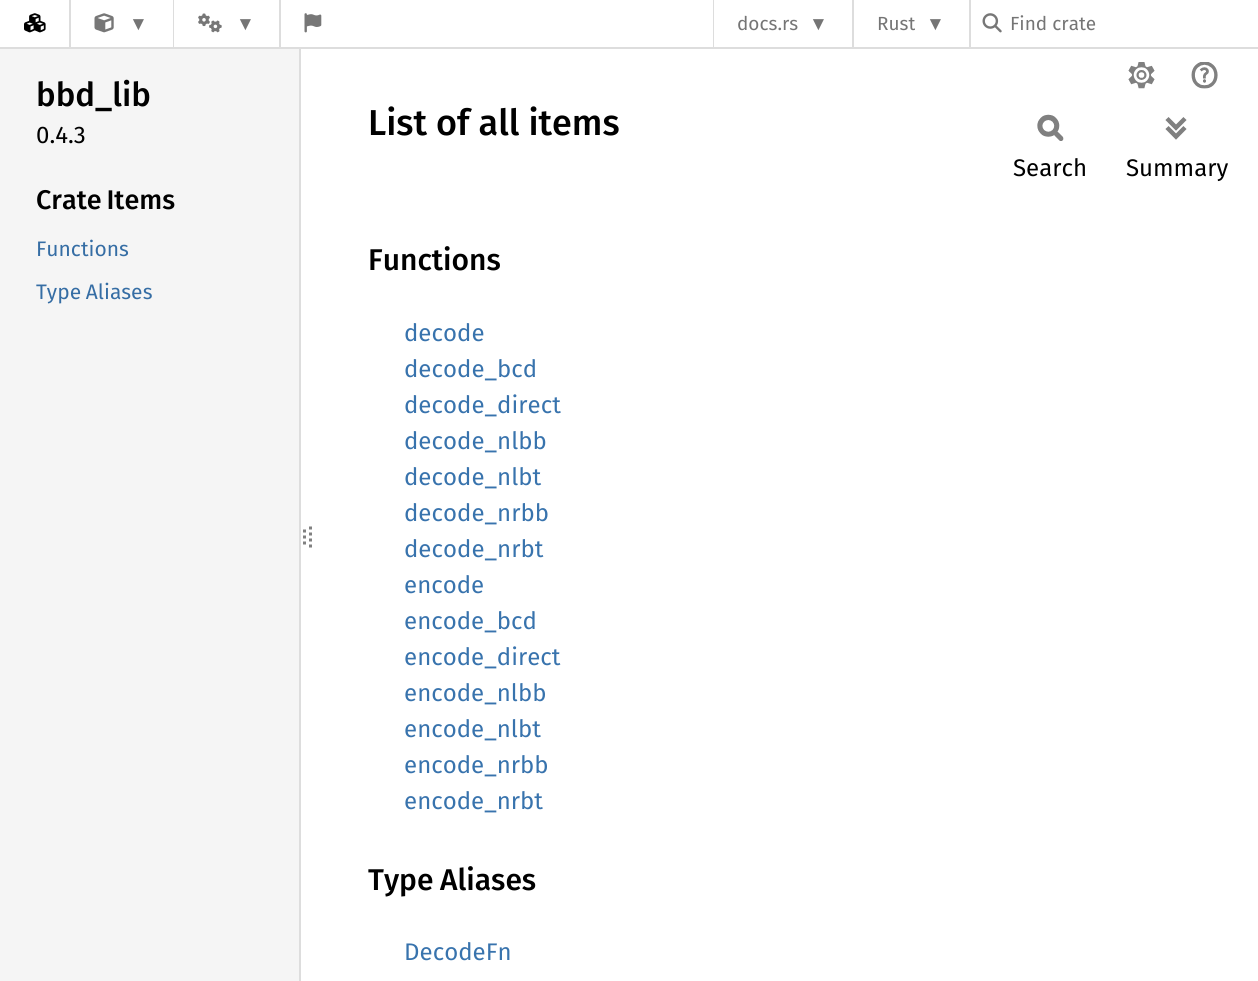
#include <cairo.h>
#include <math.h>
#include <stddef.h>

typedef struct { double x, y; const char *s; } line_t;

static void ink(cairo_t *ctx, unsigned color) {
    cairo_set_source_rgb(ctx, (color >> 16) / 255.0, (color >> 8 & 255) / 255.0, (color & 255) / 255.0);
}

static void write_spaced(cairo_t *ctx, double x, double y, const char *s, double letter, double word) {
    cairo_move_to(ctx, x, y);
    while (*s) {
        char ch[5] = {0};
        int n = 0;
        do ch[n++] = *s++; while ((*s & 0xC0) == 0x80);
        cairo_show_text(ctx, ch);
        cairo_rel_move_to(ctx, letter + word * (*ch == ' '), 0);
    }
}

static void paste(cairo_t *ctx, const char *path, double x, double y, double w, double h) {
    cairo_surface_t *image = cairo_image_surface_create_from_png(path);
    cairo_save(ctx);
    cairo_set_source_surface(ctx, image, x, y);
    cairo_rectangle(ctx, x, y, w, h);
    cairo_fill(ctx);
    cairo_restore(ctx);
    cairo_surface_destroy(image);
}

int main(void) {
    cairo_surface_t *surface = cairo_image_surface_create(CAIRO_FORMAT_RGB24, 1258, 981);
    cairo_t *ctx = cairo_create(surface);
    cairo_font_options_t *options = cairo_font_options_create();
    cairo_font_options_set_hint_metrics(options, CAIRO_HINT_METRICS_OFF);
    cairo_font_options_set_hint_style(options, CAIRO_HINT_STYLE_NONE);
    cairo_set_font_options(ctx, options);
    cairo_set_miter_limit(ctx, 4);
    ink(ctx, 0xFFFFFF);
    cairo_paint(ctx);
    ink(ctx, 0xDDDDDD);
    cairo_rectangle(ctx, 299, 48, 2, 933);
    cairo_fill(ctx);
    cairo_rectangle(ctx, 0, 47, 1258, 2);
    cairo_fill(ctx);
    paste(ctx, "media/1.png", 24, 13, 22, 20);
    cairo_rectangle(ctx, 69, 0, 2, 47);
    cairo_fill(ctx);
    paste(ctx, "media/2.png", 94, 13, 20, 20);
    cairo_select_font_face(ctx, "Liberation Sans", CAIRO_FONT_SLANT_NORMAL, CAIRO_FONT_WEIGHT_NORMAL);
    cairo_set_font_size(ctx, 19);
    ink(ctx, 0x757575);
    cairo_move_to(ctx, 129, 30);
    cairo_show_text(ctx, "▼");
    ink(ctx, 0xDDDDDD);
    cairo_rectangle(ctx, 173, 0, 1, 47);
    cairo_fill(ctx);
    paste(ctx, "media/3.png", 198, 13, 24, 20);
    ink(ctx, 0x757575);
    cairo_move_to(ctx, 236, 30);
    cairo_show_text(ctx, "▼");
    ink(ctx, 0xDDDDDD);
    cairo_rectangle(ctx, 279, 0, 2, 47);
    cairo_fill(ctx);
    paste(ctx, "media/4.png", 304, 13, 18, 20);
    cairo_rectangle(ctx, 713, 0, 1, 47);
    cairo_fill(ctx);
    cairo_select_font_face(ctx, "Fira Sans", CAIRO_FONT_SLANT_NORMAL, CAIRO_FONT_WEIGHT_NORMAL);
    ink(ctx, 0x757575);
    cairo_move_to(ctx, 737, 30);
    cairo_show_text(ctx, "docs.rs");
    cairo_select_font_face(ctx, "Liberation Sans", CAIRO_FONT_SLANT_NORMAL, CAIRO_FONT_WEIGHT_NORMAL);
    cairo_move_to(ctx, 809, 30);
    cairo_show_text(ctx, "▼");
    ink(ctx, 0xDDDDDD);
    cairo_rectangle(ctx, 852, 0, 2, 47);
    cairo_fill(ctx);
    cairo_select_font_face(ctx, "Fira Sans", CAIRO_FONT_SLANT_NORMAL, CAIRO_FONT_WEIGHT_NORMAL);
    ink(ctx, 0x757575);
    cairo_move_to(ctx, 877, 30);
    cairo_show_text(ctx, "Rust");
    cairo_select_font_face(ctx, "Liberation Sans", CAIRO_FONT_SLANT_NORMAL, CAIRO_FONT_WEIGHT_NORMAL);
    cairo_move_to(ctx, 926, 30);
    cairo_show_text(ctx, "▼");
    ink(ctx, 0xDDDDDD);
    cairo_rectangle(ctx, 969, 0, 2, 47);
    cairo_fill(ctx);
    paste(ctx, "media/5.png", 982, 13, 20, 20);
    cairo_select_font_face(ctx, "Fira Sans", CAIRO_FONT_SLANT_NORMAL, CAIRO_FONT_WEIGHT_NORMAL);
    ink(ctx, 0x757575);
    cairo_move_to(ctx, 1010, 30);
    cairo_show_text(ctx, "Find crate");
    ink(ctx, 0xF5F5F5);
    cairo_rectangle(ctx, 0, 49, 299, 932);
    cairo_fill(ctx);
    cairo_select_font_face(ctx, "Fira Sans Medium", CAIRO_FONT_SLANT_NORMAL, CAIRO_FONT_WEIGHT_NORMAL);
    cairo_set_font_size(ctx, 33);
    ink(ctx, 0x000000);
    cairo_move_to(ctx, 36, 106);
    cairo_show_text(ctx, "bbd_lib");
    cairo_select_font_face(ctx, "Fira Sans", CAIRO_FONT_SLANT_NORMAL, CAIRO_FONT_WEIGHT_NORMAL);
    cairo_set_font_size(ctx, 24);
    cairo_move_to(ctx, 36, 143);
    cairo_show_text(ctx, "0.4.3");
    cairo_select_font_face(ctx, "Fira Sans Medium", CAIRO_FONT_SLANT_NORMAL, CAIRO_FONT_WEIGHT_NORMAL);
    cairo_set_font_size(ctx, 27);
    write_spaced(ctx, 36, 209, "Crate Items", 0, -2);
    cairo_select_font_face(ctx, "Fira Sans", CAIRO_FONT_SLANT_NORMAL, CAIRO_FONT_WEIGHT_NORMAL);
    cairo_set_font_size(ctx, 21);
    ink(ctx, 0x356DA4);
    cairo_move_to(ctx, 36, 256);
    cairo_show_text(ctx, "Functions");
    write_spaced(ctx, 36, 299, "Type Aliases", 0, -1);
    cairo_new_path(ctx);
    cairo_move_to(ctx, 304.5, 529.5);
    cairo_line_to(ctx, 304.5, 532.5);
    cairo_move_to(ctx, 304.5, 535.5);
    cairo_line_to(ctx, 304.5, 538.5);
    cairo_move_to(ctx, 304.5, 541.5);
    cairo_line_to(ctx, 304.5, 544.5);
    ink(ctx, 0x808080);
    cairo_set_line_width(ctx, 3);
    cairo_stroke(ctx);
    cairo_new_path(ctx);
    cairo_move_to(ctx, 310.5, 526.5);
    cairo_line_to(ctx, 310.5, 550.5);
    cairo_set_dash(ctx, (double[]){3, 3}, 2, 0);
    cairo_stroke(ctx);
    cairo_select_font_face(ctx, "Fira Sans Medium", CAIRO_FONT_SLANT_NORMAL, CAIRO_FONT_WEIGHT_NORMAL);
    cairo_set_font_size(ctx, 36);
    ink(ctx, 0x000000);
    cairo_move_to(ctx, 368, 135);
    cairo_show_text(ctx, "List of all items");
    paste(ctx, "media/6.png", 1128, 62, 27, 27);
    paste(ctx, "media/7.png", 1191, 62, 27, 27);
    paste(ctx, "media/8.png", 1037, 114, 27, 27);
    cairo_select_font_face(ctx, "Fira Sans", CAIRO_FONT_SLANT_NORMAL, CAIRO_FONT_WEIGHT_NORMAL);
    cairo_set_font_size(ctx, 24);
    cairo_move_to(ctx, 1013, 176);
    cairo_show_text(ctx, "Search");
    paste(ctx, "media/9.png", 1165, 117, 22, 23);
    cairo_move_to(ctx, 1126, 176);
    cairo_show_text(ctx, "Summary");
    cairo_select_font_face(ctx, "Fira Sans Medium", CAIRO_FONT_SLANT_NORMAL, CAIRO_FONT_WEIGHT_NORMAL);
    cairo_set_font_size(ctx, 30);
    cairo_move_to(ctx, 368, 270);
    cairo_show_text(ctx, "Functions");
    cairo_select_font_face(ctx, "Fira Sans", CAIRO_FONT_SLANT_NORMAL, CAIRO_FONT_WEIGHT_NORMAL);
    cairo_set_font_size(ctx, 24);
    ink(ctx, 0x3873AD);
    {
        static const line_t items[] = {
            {404, 341, "decode"},
            {404, 377, "decode_bcd"},
            {404, 413, "decode_direct"},
            {404, 449, "decode_nlbb"},
            {404, 485, "decode_nlbt"},
            {404, 521, "decode_nrbb"},
            {404, 557, "decode_nrbt"},
            {404, 593, "encode"},
            {404, 629, "encode_bcd"},
            {404, 665, "encode_direct"},
            {404, 701, "encode_nlbb"},
            {404, 737, "encode_nlbt"},
            {404, 773, "encode_nrbb"},
            {404, 809, "encode_nrbt"},
        };
        for (size_t i = 0; i < sizeof items / sizeof *items; i++) {
            cairo_move_to(ctx, items[i].x, items[i].y);
            cairo_show_text(ctx, items[i].s);
        }
    }
    cairo_select_font_face(ctx, "Fira Sans Medium", CAIRO_FONT_SLANT_NORMAL, CAIRO_FONT_WEIGHT_NORMAL);
    cairo_set_font_size(ctx, 30);
    ink(ctx, 0x000000);
    write_spaced(ctx, 368, 890, "Type Aliases", 0, -1);
    cairo_select_font_face(ctx, "Fira Sans", CAIRO_FONT_SLANT_NORMAL, CAIRO_FONT_WEIGHT_NORMAL);
    cairo_set_font_size(ctx, 24);
    ink(ctx, 0x3873AD);
    cairo_move_to(ctx, 404, 960);
    cairo_show_text(ctx, "DecodeFn");
    cairo_surface_write_to_png(surface, "image.png");
    cairo_font_options_destroy(options);
    cairo_destroy(ctx);
    cairo_surface_destroy(surface);
    return 0;
}
